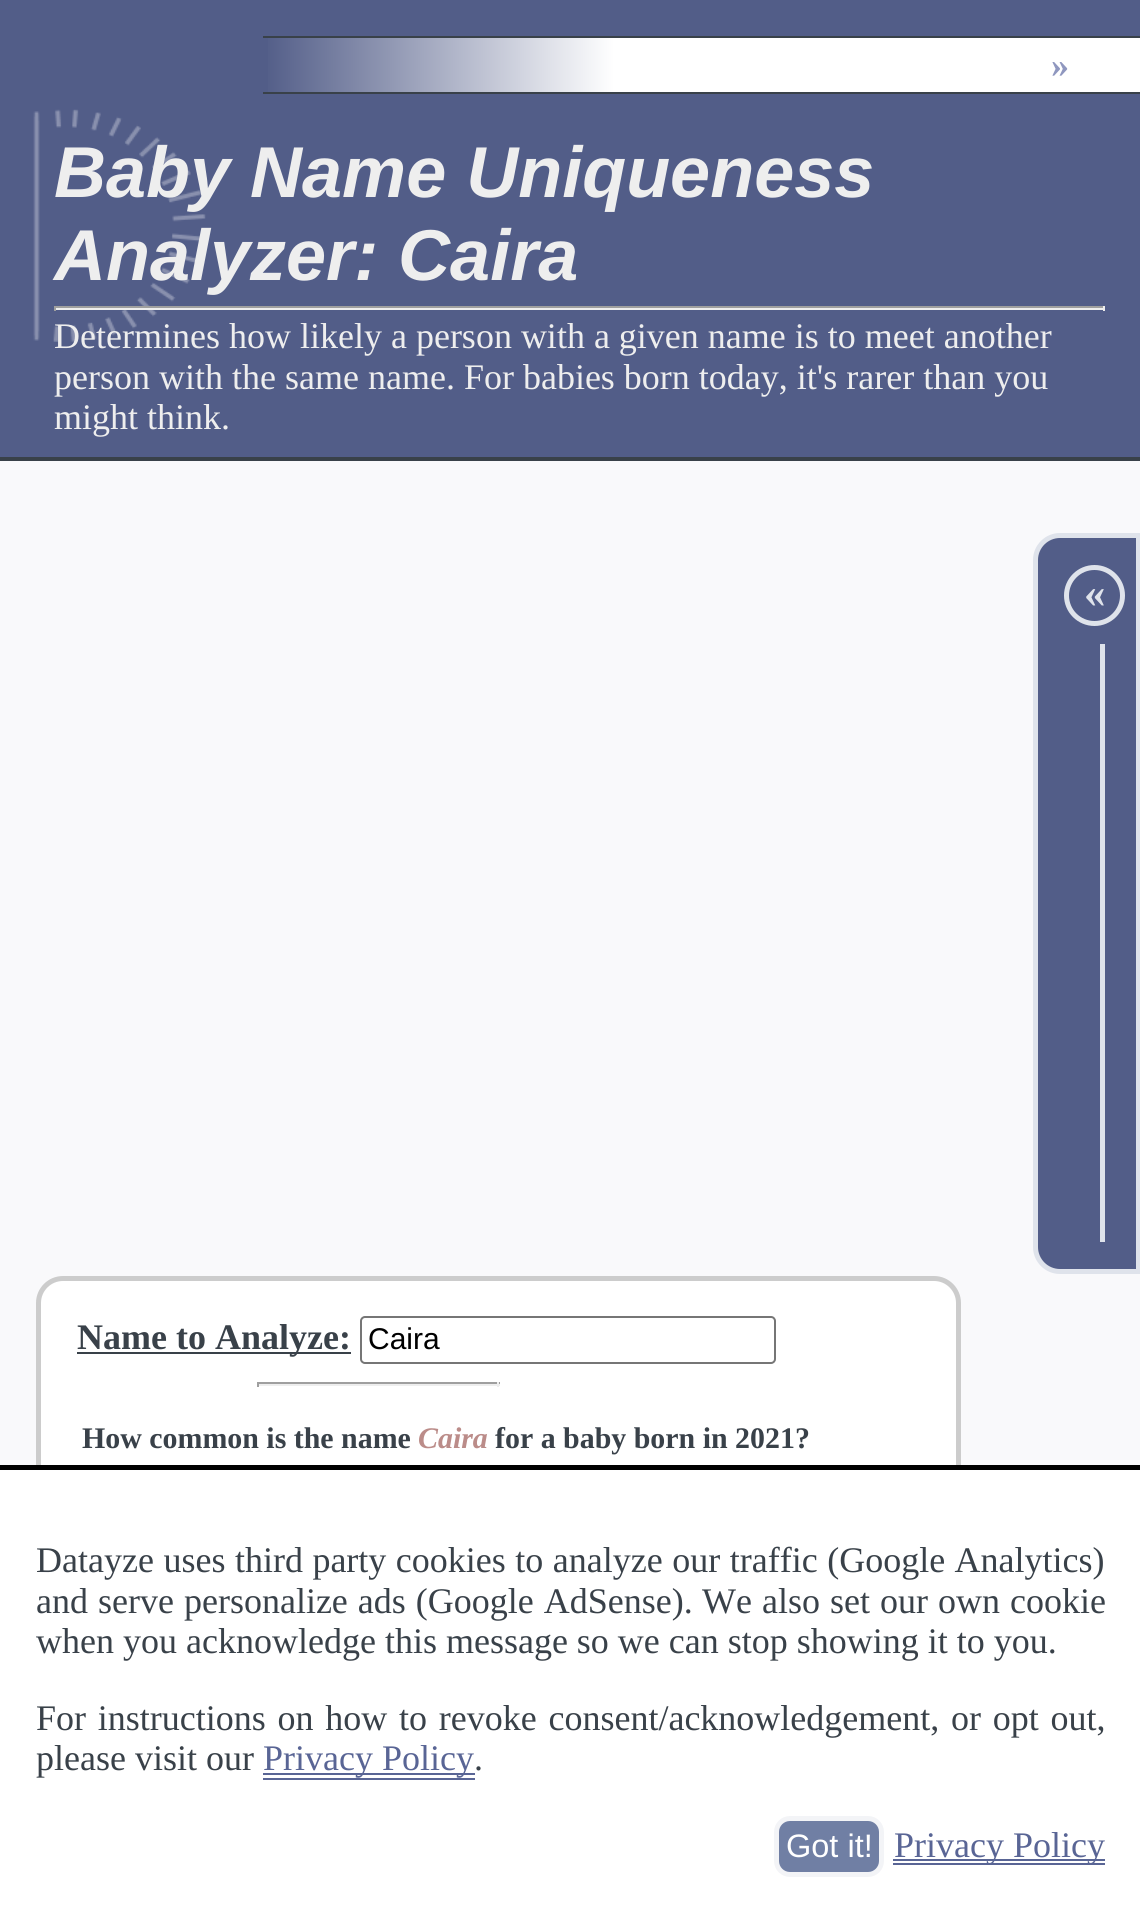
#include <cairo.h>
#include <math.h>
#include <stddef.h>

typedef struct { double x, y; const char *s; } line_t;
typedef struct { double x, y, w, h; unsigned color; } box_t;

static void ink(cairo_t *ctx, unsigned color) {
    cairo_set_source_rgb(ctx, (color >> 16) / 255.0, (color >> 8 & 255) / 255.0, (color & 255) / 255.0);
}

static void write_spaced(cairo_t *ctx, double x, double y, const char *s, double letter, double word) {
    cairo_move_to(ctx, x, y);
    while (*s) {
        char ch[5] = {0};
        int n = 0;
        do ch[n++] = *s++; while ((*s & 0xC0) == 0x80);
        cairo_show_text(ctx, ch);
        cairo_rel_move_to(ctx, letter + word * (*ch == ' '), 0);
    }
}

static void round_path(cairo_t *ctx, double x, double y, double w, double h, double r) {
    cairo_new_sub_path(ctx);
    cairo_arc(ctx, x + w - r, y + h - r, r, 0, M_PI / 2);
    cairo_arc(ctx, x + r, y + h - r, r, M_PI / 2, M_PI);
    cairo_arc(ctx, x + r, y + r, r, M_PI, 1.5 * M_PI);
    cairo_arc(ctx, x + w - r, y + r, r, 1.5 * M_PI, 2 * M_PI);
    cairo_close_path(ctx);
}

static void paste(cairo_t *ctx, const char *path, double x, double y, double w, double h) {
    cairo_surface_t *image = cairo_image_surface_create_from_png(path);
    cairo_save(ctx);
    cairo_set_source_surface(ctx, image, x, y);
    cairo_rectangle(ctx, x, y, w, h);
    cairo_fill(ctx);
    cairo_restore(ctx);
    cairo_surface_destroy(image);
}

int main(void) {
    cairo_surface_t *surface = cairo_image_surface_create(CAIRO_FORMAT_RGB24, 1140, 1911);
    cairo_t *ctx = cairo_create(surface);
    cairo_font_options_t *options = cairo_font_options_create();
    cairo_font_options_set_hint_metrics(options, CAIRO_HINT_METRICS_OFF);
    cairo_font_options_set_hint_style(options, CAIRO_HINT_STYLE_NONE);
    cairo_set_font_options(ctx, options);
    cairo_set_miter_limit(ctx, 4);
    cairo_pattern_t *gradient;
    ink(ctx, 0x525D88);
    cairo_paint(ctx);
    paste(ctx, "media/1.png", 33, 109, 173, 233);
    ink(ctx, 0x394149);
    cairo_rectangle(ctx, 0, 457, 1140, 4);
    cairo_fill(ctx);
    gradient = cairo_pattern_create_linear(263, 65, 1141, 65);
    cairo_pattern_add_color_stop_rgba(gradient, 0, 0.322, 0.365, 0.533, 1);
    cairo_pattern_add_color_stop_rgba(gradient, 0.4, 1, 1, 1, 1);
    cairo_set_source(ctx, gradient);
    cairo_pattern_destroy(gradient);
    cairo_rectangle(ctx, 268, 38, 872, 54);
    cairo_fill(ctx);
    ink(ctx, 0x394149);
    cairo_rectangle(ctx, 263, 36, 877, 2);
    cairo_fill(ctx);
    cairo_rectangle(ctx, 263, 92, 877, 2);
    cairo_fill(ctx);
    cairo_select_font_face(ctx, "Liberation Serif", CAIRO_FONT_SLANT_NORMAL, CAIRO_FONT_WEIGHT_BOLD);
    cairo_set_font_size(ctx, 36);
    ink(ctx, 0x8F97BF);
    cairo_move_to(ctx, 1051, 77);
    cairo_show_text(ctx, "»");
    cairo_select_font_face(ctx, "Liberation Sans", CAIRO_FONT_SLANT_ITALIC, CAIRO_FONT_WEIGHT_BOLD);
    cairo_set_font_size(ctx, 72);
    ink(ctx, 0xEEEEEE);
    cairo_move_to(ctx, 54, 197);
    cairo_show_text(ctx, "Baby Name Uniqueness");
    cairo_move_to(ctx, 54, 280);
    cairo_show_text(ctx, "Analyzer: Caira");
    {
        static const box_t items[] = {
            {54, 306, 1051, 2, 0x9F9F9F},
            {1103, 306, 2, 5, 0xEEEEEE},
            {54, 308, 1051, 2, 0xEEEEEE},
            {54, 306, 2, 5, 0x9F9F9F},
        };
        for (size_t i = 0; i < sizeof items / sizeof *items; i++) {
            ink(ctx, items[i].color);
            cairo_rectangle(ctx, items[i].x, items[i].y, items[i].w, items[i].h);
            cairo_fill(ctx);
        }
    }
    cairo_select_font_face(ctx, "Liberation Serif", CAIRO_FONT_SLANT_NORMAL, CAIRO_FONT_WEIGHT_NORMAL);
    cairo_set_font_size(ctx, 36);
    ink(ctx, 0xEEEEEE);
    {
        static const line_t items[] = {
            {54, 348, "Determines how likely a person with a given name is to meet another"},
            {54, 389, "person with the same name. For babies born today, it's rarer than you"},
            {54, 429, "might think."},
        };
        for (size_t i = 0; i < sizeof items / sizeof *items; i++) {
            cairo_move_to(ctx, items[i].x, items[i].y);
            cairo_show_text(ctx, items[i].s);
        }
    }
    ink(ctx, 0xF9F9FB);
    cairo_rectangle(ctx, 0, 461, 1140, 1004);
    cairo_fill(ctx);
    ink(ctx, 0x525D88);
    cairo_new_path(ctx);
    cairo_move_to(ctx, 1060, 535.5);
    cairo_line_to(ctx, 1138.5, 535.5);
    cairo_line_to(ctx, 1138.5, 1271.5);
    cairo_line_to(ctx, 1060, 1271.5);
    cairo_curve_to(ctx, 1046.5, 1271.5, 1035.5, 1260.5, 1035.5, 1247);
    cairo_line_to(ctx, 1035.5, 560);
    cairo_curve_to(ctx, 1035.5, 546.5, 1046.5, 535.5, 1060, 535.5);
    cairo_close_path(ctx);
    cairo_fill_preserve(ctx);
    ink(ctx, 0xDFE3EB);
    cairo_set_line_width(ctx, 5);
    cairo_stroke(ctx);
    cairo_arc(ctx, 1094.5, 595.5, 28, 0, 2 * M_PI);
    cairo_stroke(ctx);
    cairo_select_font_face(ctx, "Liberation Serif", CAIRO_FONT_SLANT_NORMAL, CAIRO_FONT_WEIGHT_BOLD);
    cairo_set_font_size(ctx, 43);
    cairo_move_to(ctx, 1084, 607);
    cairo_show_text(ctx, "«");
    cairo_rectangle(ctx, 1100, 644, 5, 598);
    cairo_fill(ctx);
    ink(ctx, 0xFFFFFF);
    round_path(ctx, 38.5, 1278.5, 920, 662, 24.5);
    cairo_fill_preserve(ctx);
    ink(ctx, 0xCCCCCC);
    cairo_stroke(ctx);
    ink(ctx, 0x394149);
    cairo_rectangle(ctx, 77, 1352, 274, 2);
    cairo_fill(ctx);
    cairo_set_font_size(ctx, 36);
    cairo_move_to(ctx, 77, 1349);
    cairo_show_text(ctx, "Name to Analyze:");
    round_path(ctx, 361, 1317, 414, 46, 4);
    ink(ctx, 0x767676);
    cairo_set_line_width(ctx, 2);
    cairo_stroke(ctx);
    cairo_select_font_face(ctx, "Liberation Sans", CAIRO_FONT_SLANT_NORMAL, CAIRO_FONT_WEIGHT_NORMAL);
    cairo_set_font_size(ctx, 30);
    ink(ctx, 0x000000);
    cairo_move_to(ctx, 368, 1349);
    cairo_show_text(ctx, "Caira");
    {
        static const box_t items[] = {
            {257, 1382, 243, 2, 0x9F9F9F},
            {497, 1382, 2, 5, 0xEEEEEE},
            {257, 1384, 243, 2, 0xEEEEEE},
            {257, 1382, 2, 5, 0x9F9F9F},
        };
        for (size_t i = 0; i < sizeof items / sizeof *items; i++) {
            ink(ctx, items[i].color);
            cairo_rectangle(ctx, items[i].x, items[i].y, items[i].w, items[i].h);
            cairo_fill(ctx);
        }
    }
    cairo_select_font_face(ctx, "Liberation Serif", CAIRO_FONT_SLANT_NORMAL, CAIRO_FONT_WEIGHT_BOLD);
    cairo_set_font_size(ctx, 29.9);
    ink(ctx, 0x394149);
    cairo_move_to(ctx, 82, 1448);
    cairo_show_text(ctx, "How common is the name");
    cairo_select_font_face(ctx, "Liberation Serif", CAIRO_FONT_SLANT_ITALIC, CAIRO_FONT_WEIGHT_BOLD);
    ink(ctx, 0xBB8C89);
    cairo_move_to(ctx, 418, 1448);
    cairo_show_text(ctx, "Caira");
    cairo_select_font_face(ctx, "Liberation Serif", CAIRO_FONT_SLANT_NORMAL, CAIRO_FONT_WEIGHT_BOLD);
    ink(ctx, 0x394149);
    cairo_move_to(ctx, 495, 1448);
    cairo_show_text(ctx, "for a baby born in 2021?");
    ink(ctx, 0xFFFFFF);
    cairo_rectangle(ctx, 0, 1470, 1140, 441);
    cairo_fill(ctx);
    ink(ctx, 0x000000);
    cairo_rectangle(ctx, 0, 1465, 1140, 5);
    cairo_fill(ctx);
    cairo_select_font_face(ctx, "Liberation Serif", CAIRO_FONT_SLANT_NORMAL, CAIRO_FONT_WEIGHT_NORMAL);
    cairo_set_font_size(ctx, 36);
    ink(ctx, 0x394149);
    write_spaced(ctx, 36, 1572, "Datayze uses third party cookies to analyze our traffic (Google Analytics)", 0, 0.5);
    write_spaced(ctx, 36, 1613, "and serve personalize ads (Google AdSense).", 0, 1);
    write_spaced(ctx, 702, 1613, "We also set our own cookie", 0, 1);
    cairo_move_to(ctx, 36, 1653);
    cairo_show_text(ctx, "when you acknowledge this message so we can stop showing it to you.");
    write_spaced(ctx, 36, 1730, "For instructions on how to revoke consent/acknowledgement, or opt out,", 0, 2.75);
    cairo_move_to(ctx, 36, 1770);
    cairo_show_text(ctx, "please visit our");
    ink(ctx, 0x596595);
    cairo_rectangle(ctx, 263, 1773, 212, 2);
    cairo_fill(ctx);
    cairo_move_to(ctx, 263, 1770);
    cairo_show_text(ctx, "Privacy Policy");
    cairo_rectangle(ctx, 263, 1778, 212, 2);
    cairo_fill(ctx);
    ink(ctx, 0x394149);
    cairo_move_to(ctx, 474, 1770);
    cairo_show_text(ctx, ".");
    ink(ctx, 0x707FA4);
    round_path(ctx, 776.5, 1818.5, 105, 56, 13.5);
    cairo_fill_preserve(ctx);
    ink(ctx, 0xF3F4F7);
    cairo_set_line_width(ctx, 5);
    cairo_stroke(ctx);
    cairo_select_font_face(ctx, "Liberation Sans", CAIRO_FONT_SLANT_NORMAL, CAIRO_FONT_WEIGHT_NORMAL);
    cairo_set_font_size(ctx, 32.5);
    ink(ctx, 0xFFFFFF);
    cairo_move_to(ctx, 786, 1857);
    cairo_show_text(ctx, "Got it!");
    ink(ctx, 0x596595);
    cairo_rectangle(ctx, 893, 1863, 212, 2);
    cairo_fill(ctx);
    cairo_rectangle(ctx, 893, 1859, 212, 2);
    cairo_fill(ctx);
    cairo_select_font_face(ctx, "Liberation Serif", CAIRO_FONT_SLANT_NORMAL, CAIRO_FONT_WEIGHT_NORMAL);
    cairo_set_font_size(ctx, 36);
    cairo_move_to(ctx, 894, 1857);
    cairo_show_text(ctx, "Privacy Policy");
    cairo_surface_write_to_png(surface, "image.png");
    cairo_font_options_destroy(options);
    cairo_destroy(ctx);
    cairo_surface_destroy(surface);
    return 0;
}
